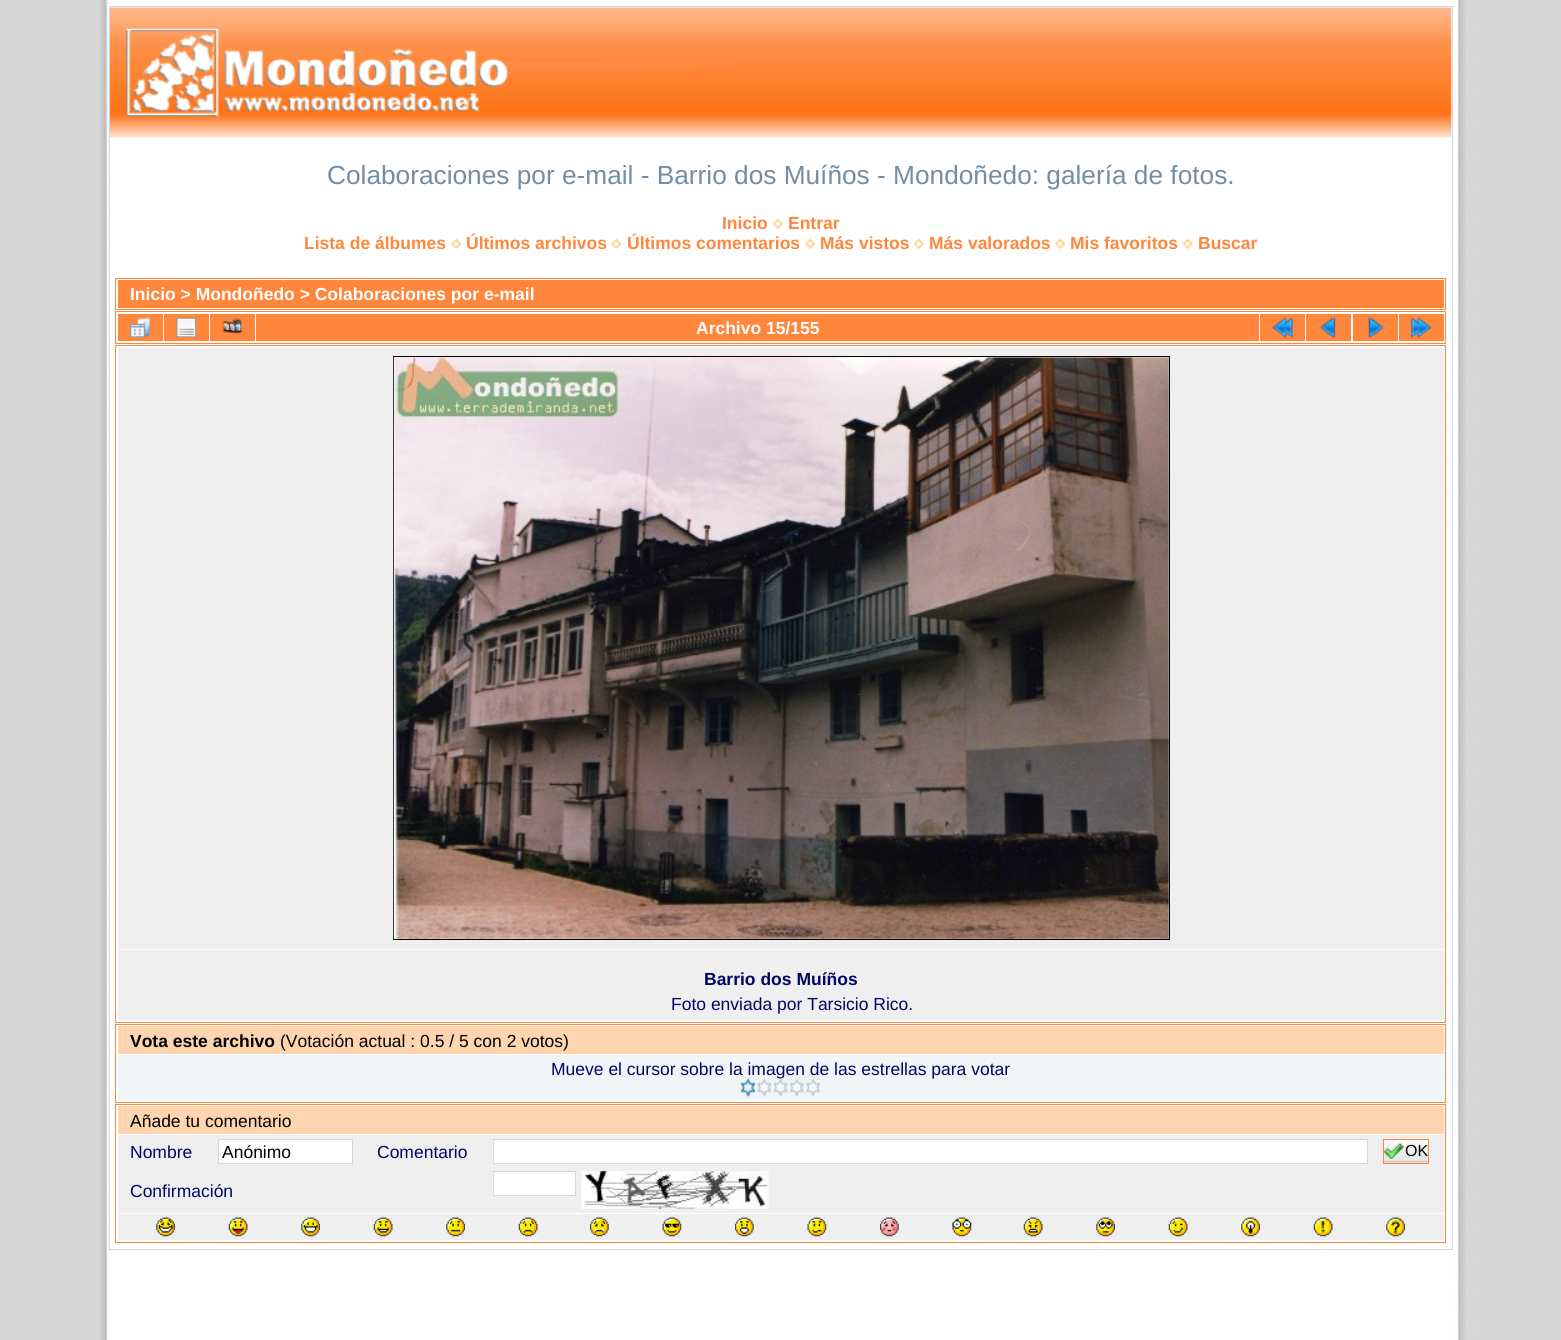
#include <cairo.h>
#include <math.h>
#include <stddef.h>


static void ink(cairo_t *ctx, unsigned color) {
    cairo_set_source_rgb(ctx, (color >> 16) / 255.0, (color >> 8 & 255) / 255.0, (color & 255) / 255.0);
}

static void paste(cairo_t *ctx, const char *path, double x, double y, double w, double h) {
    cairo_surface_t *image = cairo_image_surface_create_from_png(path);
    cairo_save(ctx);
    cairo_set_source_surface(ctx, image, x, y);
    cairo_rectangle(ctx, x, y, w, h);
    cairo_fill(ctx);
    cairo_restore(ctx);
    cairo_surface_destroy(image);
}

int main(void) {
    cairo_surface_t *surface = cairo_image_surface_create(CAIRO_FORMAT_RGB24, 1561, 1340);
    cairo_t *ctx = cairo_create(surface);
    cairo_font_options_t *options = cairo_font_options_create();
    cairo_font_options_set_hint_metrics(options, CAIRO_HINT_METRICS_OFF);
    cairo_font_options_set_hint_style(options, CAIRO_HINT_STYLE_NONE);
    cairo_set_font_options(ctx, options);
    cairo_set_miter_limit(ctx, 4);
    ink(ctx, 0xFFFFFF);
    cairo_paint(ctx);
    paste(ctx, "media/1.png", 0, 0, 1561, 1340);
    cairo_rectangle(ctx, 109.5, 6.5, 1343, 1243);
    ink(ctx, 0xCCD7E0);
    cairo_set_line_width(ctx, 1);
    cairo_stroke(ctx);
    paste(ctx, "media/2.png", 110, 7, 1342, 131);
    cairo_select_font_face(ctx, "Liberation Sans", CAIRO_FONT_SLANT_NORMAL, CAIRO_FONT_WEIGHT_NORMAL);
    cairo_set_font_size(ctx, 26.25);
    ink(ctx, 0x718EA5);
    cairo_move_to(ctx, 327, 184);
    cairo_show_text(ctx, "Colaboraciones por e-mail - Barrio dos Muíños - Mondoñedo: galería de fotos.");
    cairo_select_font_face(ctx, "Liberation Sans", CAIRO_FONT_SLANT_NORMAL, CAIRO_FONT_WEIGHT_BOLD);
    cairo_set_font_size(ctx, 17.5);
    ink(ctx, 0xFF863A);
    cairo_move_to(ctx, 722, 229);
    cairo_show_text(ctx, "Inicio");
    paste(ctx, "media/3.png", 772, 218, 11, 11);
    cairo_move_to(ctx, 788, 229);
    cairo_show_text(ctx, "Entrar");
    cairo_move_to(ctx, 304, 249);
    cairo_show_text(ctx, "Lista de álbumes");
    paste(ctx, "media/4.png", 451, 238, 11, 11);
    cairo_move_to(ctx, 466, 249);
    cairo_show_text(ctx, "Últimos archivos");
    paste(ctx, "media/4.png", 611, 238, 11, 11);
    cairo_move_to(ctx, 627, 249);
    cairo_show_text(ctx, "Últimos comentarios");
    paste(ctx, "media/5.png", 805, 238, 10, 11);
    cairo_move_to(ctx, 820, 249);
    cairo_show_text(ctx, "Más vistos");
    paste(ctx, "media/6.png", 913, 238, 11, 11);
    cairo_move_to(ctx, 929, 249);
    cairo_show_text(ctx, "Más valorados");
    paste(ctx, "media/5.png", 1055, 238, 10, 11);
    cairo_move_to(ctx, 1070, 249);
    cairo_show_text(ctx, "Mis favoritos");
    paste(ctx, "media/7.png", 1182, 238, 11, 11);
    cairo_move_to(ctx, 1198, 249);
    cairo_show_text(ctx, "Buscar");
    cairo_rectangle(ctx, 115.5, 278.5, 1330, 31);
    cairo_stroke(ctx);
    cairo_rectangle(ctx, 118, 280, 1326, 28);
    cairo_fill(ctx);
    ink(ctx, 0xFFFFFF);
    cairo_move_to(ctx, 130, 300);
    cairo_show_text(ctx, "Inicio > Mondoñedo > Colaboraciones por e-mail");
    cairo_rectangle(ctx, 115.5, 311.5, 1330, 32);
    ink(ctx, 0xFF863A);
    cairo_stroke(ctx);
    cairo_rectangle(ctx, 118, 314, 45, 27);
    cairo_fill(ctx);
    paste(ctx, "media/8.png", 130, 317, 20, 21);
    cairo_rectangle(ctx, 164, 314, 45, 27);
    cairo_fill(ctx);
    paste(ctx, "media/9.png", 176, 317, 21, 21);
    cairo_rectangle(ctx, 210, 314, 45, 27);
    cairo_fill(ctx);
    paste(ctx, "media/10.png", 222, 318, 21, 16);
    cairo_rectangle(ctx, 256, 314, 1003, 27);
    cairo_fill(ctx);
    ink(ctx, 0xFFFFFF);
    cairo_move_to(ctx, 696, 334);
    cairo_show_text(ctx, "Archivo 15/155");
    ink(ctx, 0xFF863A);
    cairo_rectangle(ctx, 1260, 314, 45, 27);
    cairo_fill(ctx);
    paste(ctx, "media/11.png", 1272, 317, 21, 21);
    cairo_rectangle(ctx, 1306, 314, 45, 27);
    cairo_fill(ctx);
    paste(ctx, "media/12.png", 1320, 317, 16, 21);
    cairo_rectangle(ctx, 1353, 314, 45, 27);
    cairo_fill(ctx);
    paste(ctx, "media/13.png", 1368, 317, 16, 21);
    cairo_rectangle(ctx, 1399, 314, 45, 27);
    cairo_fill(ctx);
    paste(ctx, "media/14.png", 1411, 317, 21, 21);
    cairo_rectangle(ctx, 115.5, 345.5, 1330, 677);
    cairo_stroke(ctx);
    ink(ctx, 0xEFEFEF);
    cairo_rectangle(ctx, 118, 348, 1326, 601);
    cairo_fill(ctx);
    cairo_rectangle(ctx, 393.5, 356.5, 776, 583);
    ink(ctx, 0x000000);
    cairo_stroke(ctx);
    paste(ctx, "media/15.png", 393, 357, 776, 582);
    ink(ctx, 0xEFEFEF);
    cairo_rectangle(ctx, 118, 950, 1326, 70);
    cairo_fill(ctx);
    ink(ctx, 0x000666);
    cairo_move_to(ctx, 704, 985);
    cairo_show_text(ctx, "Barrio dos Muíños");
    cairo_select_font_face(ctx, "Liberation Sans", CAIRO_FONT_SLANT_NORMAL, CAIRO_FONT_WEIGHT_NORMAL);
    cairo_move_to(ctx, 671, 1010);
    cairo_show_text(ctx, "Foto enviada por Tarsicio Rico.");
    cairo_rectangle(ctx, 115.5, 1024.5, 1330, 78);
    ink(ctx, 0xFF863A);
    cairo_stroke(ctx);
    ink(ctx, 0xFFD5B0);
    cairo_rectangle(ctx, 118, 1026, 1326, 28);
    cairo_fill(ctx);
    cairo_select_font_face(ctx, "Liberation Sans", CAIRO_FONT_SLANT_NORMAL, CAIRO_FONT_WEIGHT_BOLD);
    ink(ctx, 0x000000);
    cairo_move_to(ctx, 130, 1047);
    cairo_show_text(ctx, "Vota este archivo");
    cairo_select_font_face(ctx, "Liberation Sans", CAIRO_FONT_SLANT_NORMAL, CAIRO_FONT_WEIGHT_NORMAL);
    cairo_move_to(ctx, 280, 1047);
    cairo_show_text(ctx, "(Votación actual : 0.5 / 5 con 2 votos)");
    ink(ctx, 0xF2F5F7);
    cairo_rectangle(ctx, 118, 1055, 1326, 45);
    cairo_fill(ctx);
    ink(ctx, 0x000666);
    cairo_move_to(ctx, 551, 1075);
    cairo_show_text(ctx, "Mueve el cursor sobre la imagen de las estrellas para votar");
    paste(ctx, "media/16.png", 740, 1078, 16, 19);
    paste(ctx, "media/17.png", 756, 1078, 16, 19);
    paste(ctx, "media/18.png", 772, 1078, 16, 19);
    paste(ctx, "media/19.png", 789, 1078, 15, 19);
    paste(ctx, "media/20.png", 805, 1078, 16, 19);
    cairo_rectangle(ctx, 115.5, 1104.5, 1330, 138);
    ink(ctx, 0xFF863A);
    cairo_stroke(ctx);
    ink(ctx, 0xFFD5B0);
    cairo_rectangle(ctx, 118, 1106, 1326, 28);
    cairo_fill(ctx);
    ink(ctx, 0x000000);
    cairo_move_to(ctx, 130, 1127);
    cairo_show_text(ctx, "Añade tu comentario");
    ink(ctx, 0xEFEFEF);
    cairo_rectangle(ctx, 118, 1135, 1326, 33);
    cairo_fill(ctx);
    ink(ctx, 0x000666);
    cairo_move_to(ctx, 130, 1158);
    cairo_show_text(ctx, "Nombre");
    ink(ctx, 0xFFFFFF);
    cairo_rectangle(ctx, 218.5, 1139.5, 134, 24);
    cairo_fill_preserve(ctx);
    ink(ctx, 0xD1D7DC);
    cairo_stroke(ctx);
    ink(ctx, 0x000000);
    cairo_move_to(ctx, 222, 1158);
    cairo_show_text(ctx, "Anónimo");
    ink(ctx, 0x000666);
    cairo_move_to(ctx, 377, 1158);
    cairo_show_text(ctx, "Comentario");
    ink(ctx, 0xFFFFFF);
    cairo_rectangle(ctx, 493.5, 1139.5, 874, 24);
    cairo_fill_preserve(ctx);
    ink(ctx, 0xD1D7DC);
    cairo_stroke(ctx);
    paste(ctx, "media/21.png", 1382, 1139, 46, 25);
    cairo_rectangle(ctx, 1383.5, 1139.5, 45, 24);
    ink(ctx, 0xFF863A);
    cairo_stroke(ctx);
    paste(ctx, "media/22.png", 1383, 1143, 21, 16);
    cairo_set_font_size(ctx, 16);
    ink(ctx, 0x000000);
    cairo_move_to(ctx, 1405, 1156);
    cairo_show_text(ctx, "OK");
    ink(ctx, 0xEFEFEF);
    cairo_rectangle(ctx, 118, 1168, 1326, 45);
    cairo_fill(ctx);
    cairo_set_font_size(ctx, 17.5);
    ink(ctx, 0x000666);
    cairo_move_to(ctx, 130, 1197);
    cairo_show_text(ctx, "Confirmación");
    ink(ctx, 0xFFFFFF);
    cairo_rectangle(ctx, 493.5, 1171.5, 82, 24);
    cairo_fill_preserve(ctx);
    ink(ctx, 0xD1D7DC);
    cairo_stroke(ctx);
    paste(ctx, "media/23.png", 581, 1171, 188, 38);
    ink(ctx, 0xEFEFEF);
    cairo_rectangle(ctx, 118, 1214, 1326, 26);
    cairo_fill(ctx);
    paste(ctx, "media/24.png", 156, 1217, 19, 20);
    paste(ctx, "media/25.png", 228, 1217, 20, 20);
    paste(ctx, "media/26.png", 301, 1217, 19, 20);
    paste(ctx, "media/27.png", 373, 1217, 20, 20);
    paste(ctx, "media/28.png", 446, 1217, 19, 20);
    paste(ctx, "media/29.png", 518, 1217, 20, 20);
    paste(ctx, "media/30.png", 590, 1217, 19, 20);
    paste(ctx, "media/31.png", 662, 1217, 20, 20);
    paste(ctx, "media/32.png", 735, 1217, 19, 20);
    paste(ctx, "media/33.png", 807, 1217, 20, 20);
    paste(ctx, "media/34.png", 880, 1217, 19, 20);
    paste(ctx, "media/35.png", 952, 1217, 20, 20);
    paste(ctx, "media/36.png", 1023, 1217, 20, 20);
    paste(ctx, "media/37.png", 1096, 1217, 19, 20);
    paste(ctx, "media/38.png", 1168, 1217, 20, 20);
    paste(ctx, "media/39.png", 1241, 1217, 19, 20);
    paste(ctx, "media/40.png", 1313, 1217, 20, 20);
    paste(ctx, "media/41.png", 1386, 1217, 19, 20);
    cairo_surface_write_to_png(surface, "image.png");
    cairo_font_options_destroy(options);
    cairo_destroy(ctx);
    cairo_surface_destroy(surface);
    return 0;
}
